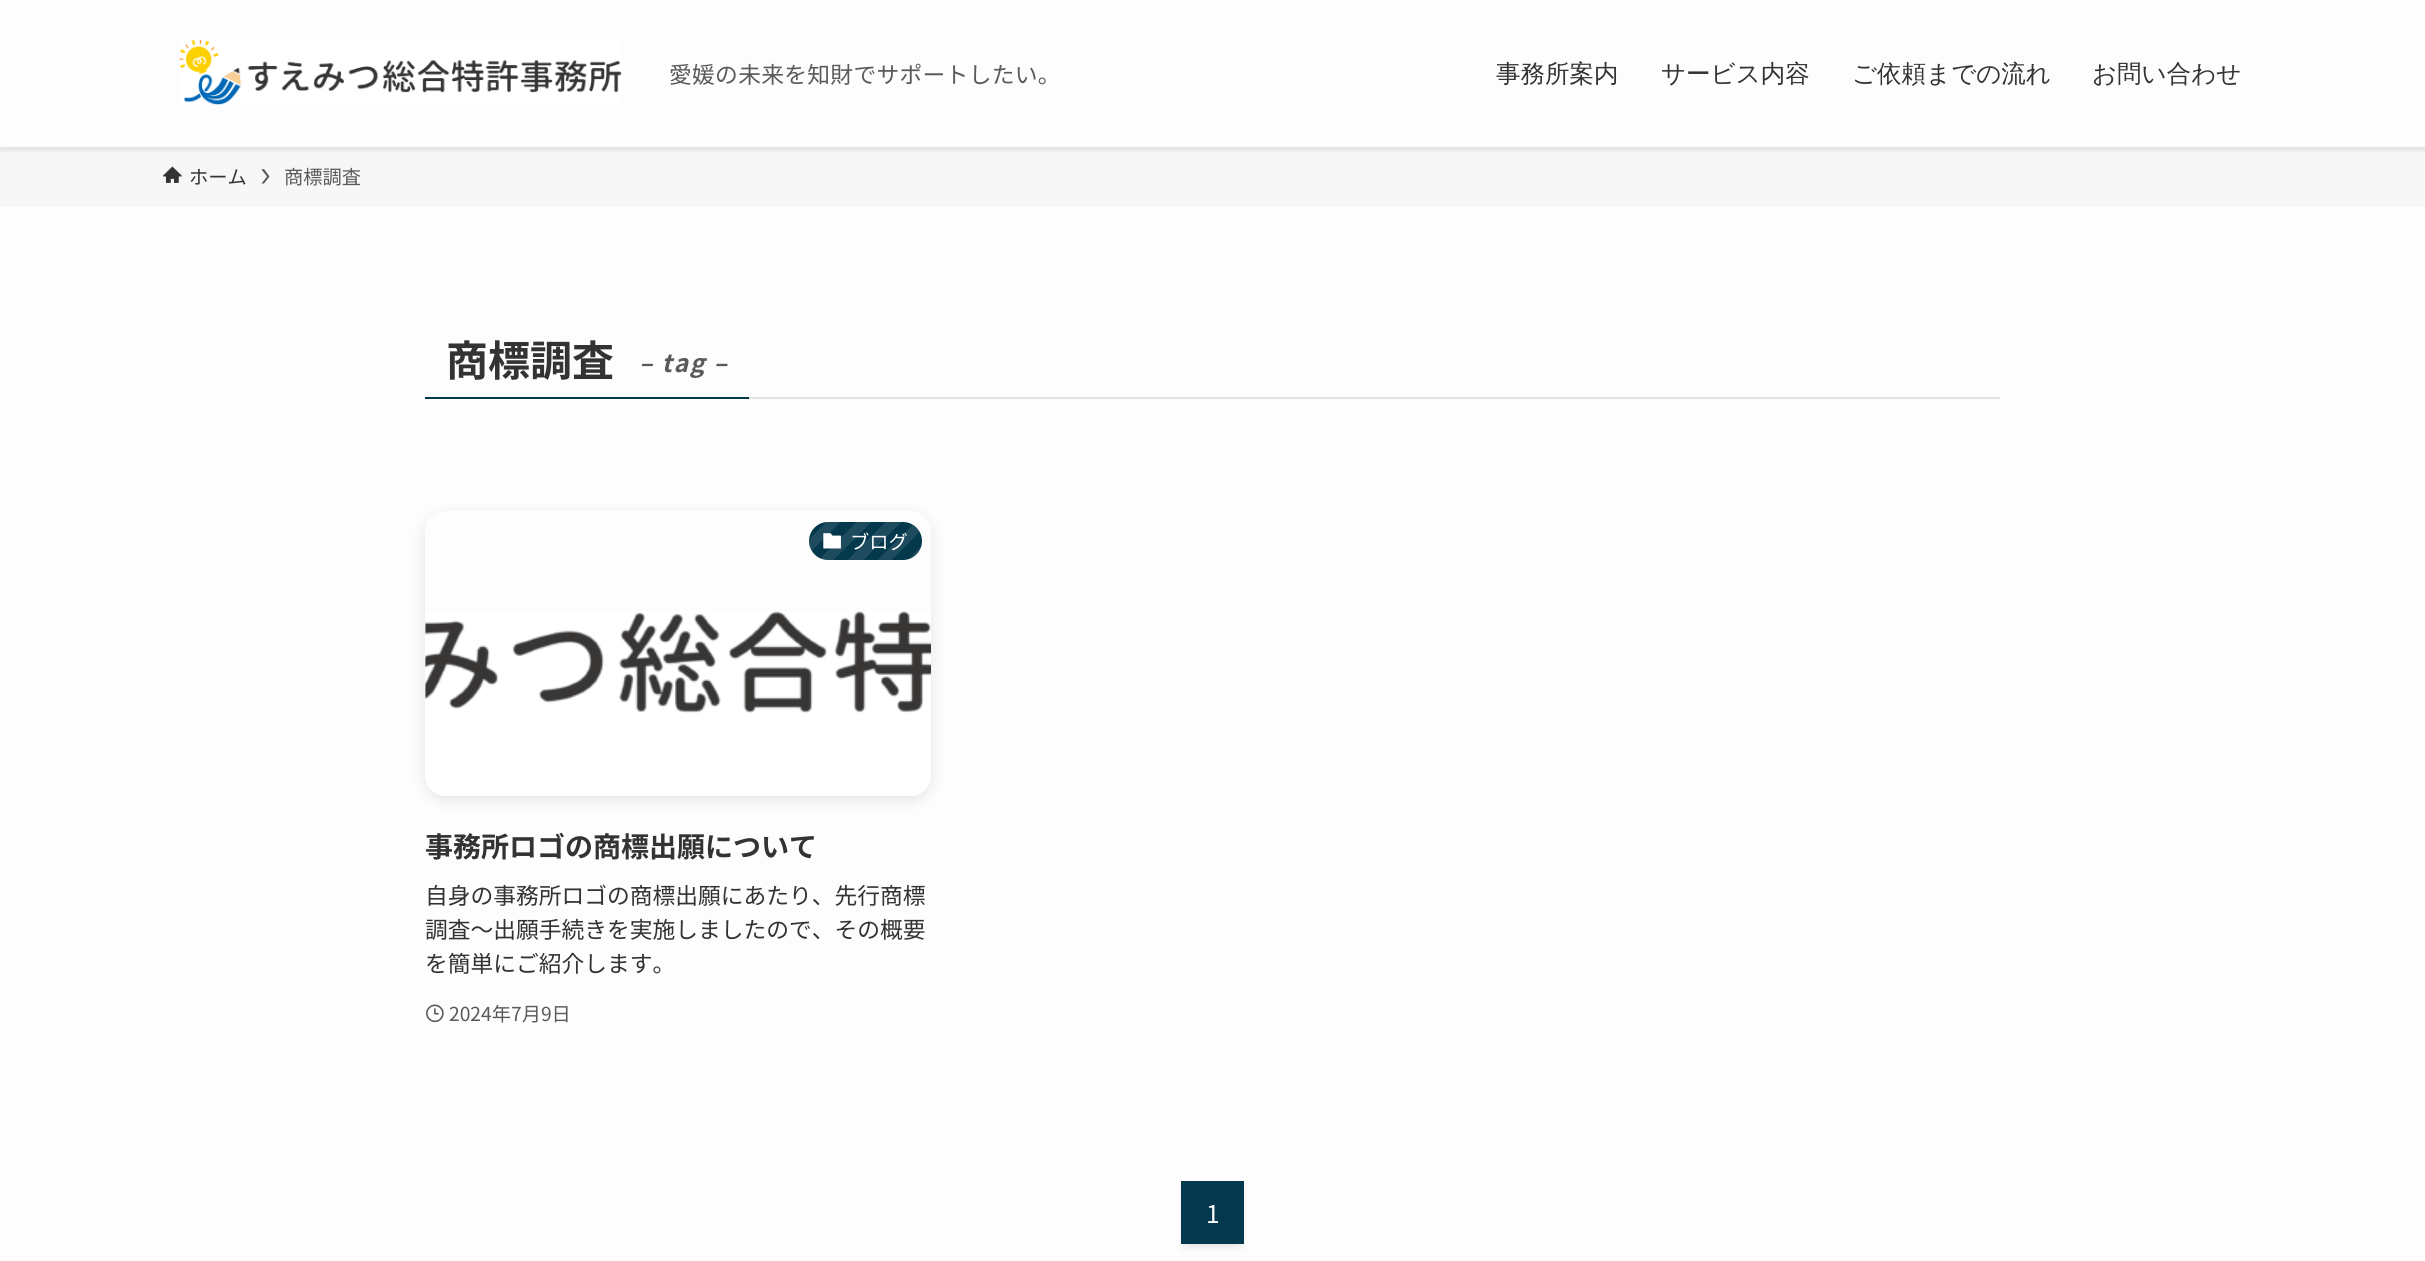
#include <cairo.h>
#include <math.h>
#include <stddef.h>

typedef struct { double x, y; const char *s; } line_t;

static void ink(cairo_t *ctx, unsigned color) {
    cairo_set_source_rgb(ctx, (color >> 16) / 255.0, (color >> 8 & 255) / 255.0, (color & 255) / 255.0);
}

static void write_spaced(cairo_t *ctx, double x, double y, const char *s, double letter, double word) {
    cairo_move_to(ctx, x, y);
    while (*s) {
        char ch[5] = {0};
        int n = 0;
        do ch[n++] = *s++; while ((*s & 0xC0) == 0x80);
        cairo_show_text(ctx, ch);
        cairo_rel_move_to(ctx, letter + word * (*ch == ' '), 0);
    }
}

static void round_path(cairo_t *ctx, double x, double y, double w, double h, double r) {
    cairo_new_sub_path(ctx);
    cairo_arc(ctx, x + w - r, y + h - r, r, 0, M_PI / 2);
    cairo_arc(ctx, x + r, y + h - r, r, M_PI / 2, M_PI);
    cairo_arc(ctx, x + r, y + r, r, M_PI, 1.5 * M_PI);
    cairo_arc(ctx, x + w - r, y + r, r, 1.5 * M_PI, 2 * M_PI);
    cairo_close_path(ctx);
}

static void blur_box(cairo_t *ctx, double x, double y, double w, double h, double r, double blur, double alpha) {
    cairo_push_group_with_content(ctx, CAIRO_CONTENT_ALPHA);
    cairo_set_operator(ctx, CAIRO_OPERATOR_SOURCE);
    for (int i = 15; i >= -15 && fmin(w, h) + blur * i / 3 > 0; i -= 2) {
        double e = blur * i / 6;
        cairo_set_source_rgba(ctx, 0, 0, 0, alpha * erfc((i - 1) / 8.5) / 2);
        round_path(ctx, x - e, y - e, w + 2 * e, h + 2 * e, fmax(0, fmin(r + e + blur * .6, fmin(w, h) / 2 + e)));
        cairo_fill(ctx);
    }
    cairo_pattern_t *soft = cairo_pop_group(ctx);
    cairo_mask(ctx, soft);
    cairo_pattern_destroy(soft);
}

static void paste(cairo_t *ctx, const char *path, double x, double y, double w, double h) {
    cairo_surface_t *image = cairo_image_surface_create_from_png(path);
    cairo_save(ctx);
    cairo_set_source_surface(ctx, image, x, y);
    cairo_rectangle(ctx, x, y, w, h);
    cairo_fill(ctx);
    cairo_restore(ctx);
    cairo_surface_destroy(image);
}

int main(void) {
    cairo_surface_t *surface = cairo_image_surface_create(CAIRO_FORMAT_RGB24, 2425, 1261);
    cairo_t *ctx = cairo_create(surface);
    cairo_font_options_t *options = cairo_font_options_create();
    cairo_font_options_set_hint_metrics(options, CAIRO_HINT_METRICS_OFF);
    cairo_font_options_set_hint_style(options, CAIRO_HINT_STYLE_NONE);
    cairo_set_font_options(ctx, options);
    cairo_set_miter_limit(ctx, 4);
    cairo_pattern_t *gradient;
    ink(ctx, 0xFDFDFD);
    cairo_paint(ctx);
    ink(ctx, 0xF7F7F7);
    cairo_rectangle(ctx, 0, 147, 2425, 60);
    cairo_fill(ctx);
    cairo_save(ctx);
    cairo_rectangle(ctx, 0, 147, 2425, 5);
    cairo_clip(ctx);
    ink(ctx, 0x000000);
    blur_box(ctx, 0, 2, 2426, 147, 0, 3.5, 0.12);
    cairo_restore(ctx);
    paste(ctx, "media/1.png", 179, 40, 443, 65);
    cairo_select_font_face(ctx, "Noto Sans JP", CAIRO_FONT_SLANT_NORMAL, CAIRO_FONT_WEIGHT_NORMAL);
    cairo_set_font_size(ctx, 22.75);
    ink(ctx, 0x5A5A5A);
    write_spaced(ctx, 669, 83, "愛媛の未来を知財でサポートしたい。", 0.3, 0);
    cairo_select_font_face(ctx, "WenQuanYi Zen Hei Medium", CAIRO_FONT_SLANT_NORMAL, CAIRO_FONT_WEIGHT_NORMAL);
    cairo_set_font_size(ctx, 24.5);
    ink(ctx, 0x333333);
    {
        static const line_t items[] = {
            {1496, 82, "事務所案内"},
            {1661, 82, "サービス内容"},
            {1852, 82, "ご依頼までの流れ"},
            {2092, 82, "お問い合わせ"},
        };
        for (size_t i = 0; i < sizeof items / sizeof *items; i++) {
            cairo_move_to(ctx, items[i].x, items[i].y);
            cairo_show_text(ctx, items[i].s);
        }
    }
    paste(ctx, "media/2.png", 163, 166, 19, 17);
    cairo_select_font_face(ctx, "Noto Sans JP", CAIRO_FONT_SLANT_NORMAL, CAIRO_FONT_WEIGHT_NORMAL);
    cairo_set_font_size(ctx, 19.25);
    cairo_move_to(ctx, 189, 184);
    cairo_show_text(ctx, "ホーム");
    ink(ctx, 0x5A5A5A);
    cairo_new_path(ctx);
    cairo_move_to(ctx, 264, 169);
    cairo_line_to(ctx, 261.5, 169.5);
    cairo_line_to(ctx, 267, 176.5);
    cairo_line_to(ctx, 261.5, 183.5);
    cairo_line_to(ctx, 264, 183.5);
    cairo_line_to(ctx, 269.5, 176.5);
    cairo_close_path(ctx);
    cairo_fill(ctx);
    cairo_move_to(ctx, 284, 184);
    cairo_show_text(ctx, "商標調査");
    ink(ctx, 0xE2E2E2);
    cairo_rectangle(ctx, 749, 397, 1251, 2);
    cairo_fill(ctx);
    ink(ctx, 0x04384C);
    cairo_rectangle(ctx, 425, 397, 324, 2);
    cairo_fill(ctx);
    cairo_select_font_face(ctx, "Noto Sans JP", CAIRO_FONT_SLANT_NORMAL, CAIRO_FONT_WEIGHT_BOLD);
    cairo_set_font_size(ctx, 42);
    ink(ctx, 0x333333);
    cairo_move_to(ctx, 446, 376);
    cairo_show_text(ctx, "商標調査");
    cairo_select_font_face(ctx, "Noto Sans JP", CAIRO_FONT_SLANT_ITALIC, CAIRO_FONT_WEIGHT_BOLD);
    cairo_set_font_size(ctx, 24.5);
    ink(ctx, 0x5A5A5A);
    write_spaced(ctx, 639, 372, "– tag –", 1.75, 0);
    cairo_save(ctx);
    cairo_set_fill_rule(ctx, CAIRO_FILL_RULE_EVEN_ODD);
    cairo_new_path(ctx);
    cairo_move_to(ctx, 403, 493);
    cairo_line_to(ctx, 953, 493);
    cairo_line_to(ctx, 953, 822);
    cairo_line_to(ctx, 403, 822);
    cairo_close_path(ctx);
    cairo_move_to(ctx, 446, 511);
    cairo_line_to(ctx, 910, 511);
    cairo_curve_to(ctx, 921.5, 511, 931, 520.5, 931, 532);
    cairo_line_to(ctx, 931, 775);
    cairo_curve_to(ctx, 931, 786.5, 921.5, 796, 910, 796);
    cairo_line_to(ctx, 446, 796);
    cairo_curve_to(ctx, 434.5, 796, 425, 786.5, 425, 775);
    cairo_line_to(ctx, 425, 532);
    cairo_curve_to(ctx, 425, 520.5, 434.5, 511, 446, 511);
    cairo_close_path(ctx);
    cairo_clip(ctx);
    ink(ctx, 0x000000);
    blur_box(ctx, 425, 515, 506, 285, 21, 7, 0.1);
    cairo_restore(ctx);
    ink(ctx, 0x04384C);
    round_path(ctx, 809, 522, 113, 38, 19);
    cairo_fill(ctx);
    gradient = cairo_pattern_create_linear(903, 579, 814, 490);
    cairo_pattern_add_color_stop_rgba(gradient, 0, 1, 1, 1, 0.1);
    cairo_pattern_add_color_stop_rgba(gradient, 0.08, 1, 1, 1, 0.1);
    cairo_pattern_add_color_stop_rgba(gradient, 0.08, 1, 1, 1, 0);
    cairo_pattern_add_color_stop_rgba(gradient, 0.17, 1, 1, 1, 0);
    cairo_pattern_add_color_stop_rgba(gradient, 0.17, 1, 1, 1, 0.1);
    cairo_pattern_add_color_stop_rgba(gradient, 0.25, 1, 1, 1, 0.1);
    cairo_pattern_add_color_stop_rgba(gradient, 0.25, 1, 1, 1, 0);
    cairo_pattern_add_color_stop_rgba(gradient, 0.33, 1, 1, 1, 0);
    cairo_pattern_add_color_stop_rgba(gradient, 0.33, 1, 1, 1, 0.1);
    cairo_pattern_add_color_stop_rgba(gradient, 0.42, 1, 1, 1, 0.1);
    cairo_pattern_add_color_stop_rgba(gradient, 0.42, 1, 1, 1, 0);
    cairo_pattern_add_color_stop_rgba(gradient, 0.5, 1, 1, 1, 0);
    cairo_pattern_add_color_stop_rgba(gradient, 0.5, 1, 1, 1, 0.1);
    cairo_pattern_add_color_stop_rgba(gradient, 0.58, 1, 1, 1, 0.1);
    cairo_pattern_add_color_stop_rgba(gradient, 0.58, 1, 1, 1, 0);
    cairo_pattern_add_color_stop_rgba(gradient, 0.67, 1, 1, 1, 0);
    cairo_pattern_add_color_stop_rgba(gradient, 0.67, 1, 1, 1, 0.1);
    cairo_pattern_add_color_stop_rgba(gradient, 0.75, 1, 1, 1, 0.1);
    cairo_pattern_add_color_stop_rgba(gradient, 0.75, 1, 1, 1, 0);
    cairo_pattern_add_color_stop_rgba(gradient, 0.83, 1, 1, 1, 0);
    cairo_pattern_add_color_stop_rgba(gradient, 0.83, 1, 1, 1, 0.1);
    cairo_pattern_add_color_stop_rgba(gradient, 0.92, 1, 1, 1, 0.1);
    cairo_pattern_add_color_stop_rgba(gradient, 0.92, 1, 1, 1, 0);
    cairo_pattern_add_color_stop_rgba(gradient, 1, 0, 0, 0, 0);
    cairo_set_source(ctx, gradient);
    cairo_pattern_destroy(gradient);
    round_path(ctx, 809, 522, 113, 38, 19);
    cairo_fill(ctx);
    paste(ctx, "media/3.png", 823, 533, 18, 16);
    cairo_select_font_face(ctx, "Noto Sans JP", CAIRO_FONT_SLANT_NORMAL, CAIRO_FONT_WEIGHT_NORMAL);
    cairo_set_font_size(ctx, 19.25);
    ink(ctx, 0xFFFFFF);
    cairo_move_to(ctx, 850, 549);
    cairo_show_text(ctx, "ブログ");
    paste(ctx, "media/4.png", 425, 611, 506, 185);
    cairo_select_font_face(ctx, "Noto Sans JP", CAIRO_FONT_SLANT_NORMAL, CAIRO_FONT_WEIGHT_BOLD);
    cairo_set_font_size(ctx, 28);
    ink(ctx, 0x333333);
    cairo_move_to(ctx, 425, 857);
    cairo_show_text(ctx, "事務所ロゴの商標出願について");
    cairo_select_font_face(ctx, "Noto Sans JP", CAIRO_FONT_SLANT_NORMAL, CAIRO_FONT_WEIGHT_NORMAL);
    cairo_set_font_size(ctx, 22.75);
    {
        static const line_t items[] = {
            {425, 904, "自身の事務所ロゴの商標出願にあたり、先行商標"},
            {425, 938, "調査～出願手続きを実施しましたので、その概要"},
            {425, 972, "を簡単にご紹介します。"},
        };
        for (size_t i = 0; i < sizeof items / sizeof *items; i++) {
            cairo_move_to(ctx, items[i].x, items[i].y);
            cairo_show_text(ctx, items[i].s);
        }
    }
    paste(ctx, "media/5.png", 426, 1004, 18, 19);
    cairo_set_font_size(ctx, 19.25);
    ink(ctx, 0x5A5A5A);
    cairo_move_to(ctx, 449, 1021);
    cairo_show_text(ctx, "2024年7月9日");
    ink(ctx, 0x000000);
    blur_box(ctx, 1188, 1195, 49, 49, 0, 3.5, 0.1);
    blur_box(ctx, 1181, 1185, 63, 63, 0, 3.5, 0.05);
    ink(ctx, 0x04384C);
    cairo_rectangle(ctx, 1181, 1181, 63, 63);
    cairo_fill(ctx);
    cairo_set_font_size(ctx, 24.5);
    ink(ctx, 0xFFFFFF);
    cairo_move_to(ctx, 1206, 1223);
    cairo_show_text(ctx, "1");
    cairo_surface_write_to_png(surface, "image.png");
    cairo_font_options_destroy(options);
    cairo_destroy(ctx);
    cairo_surface_destroy(surface);
    return 0;
}
